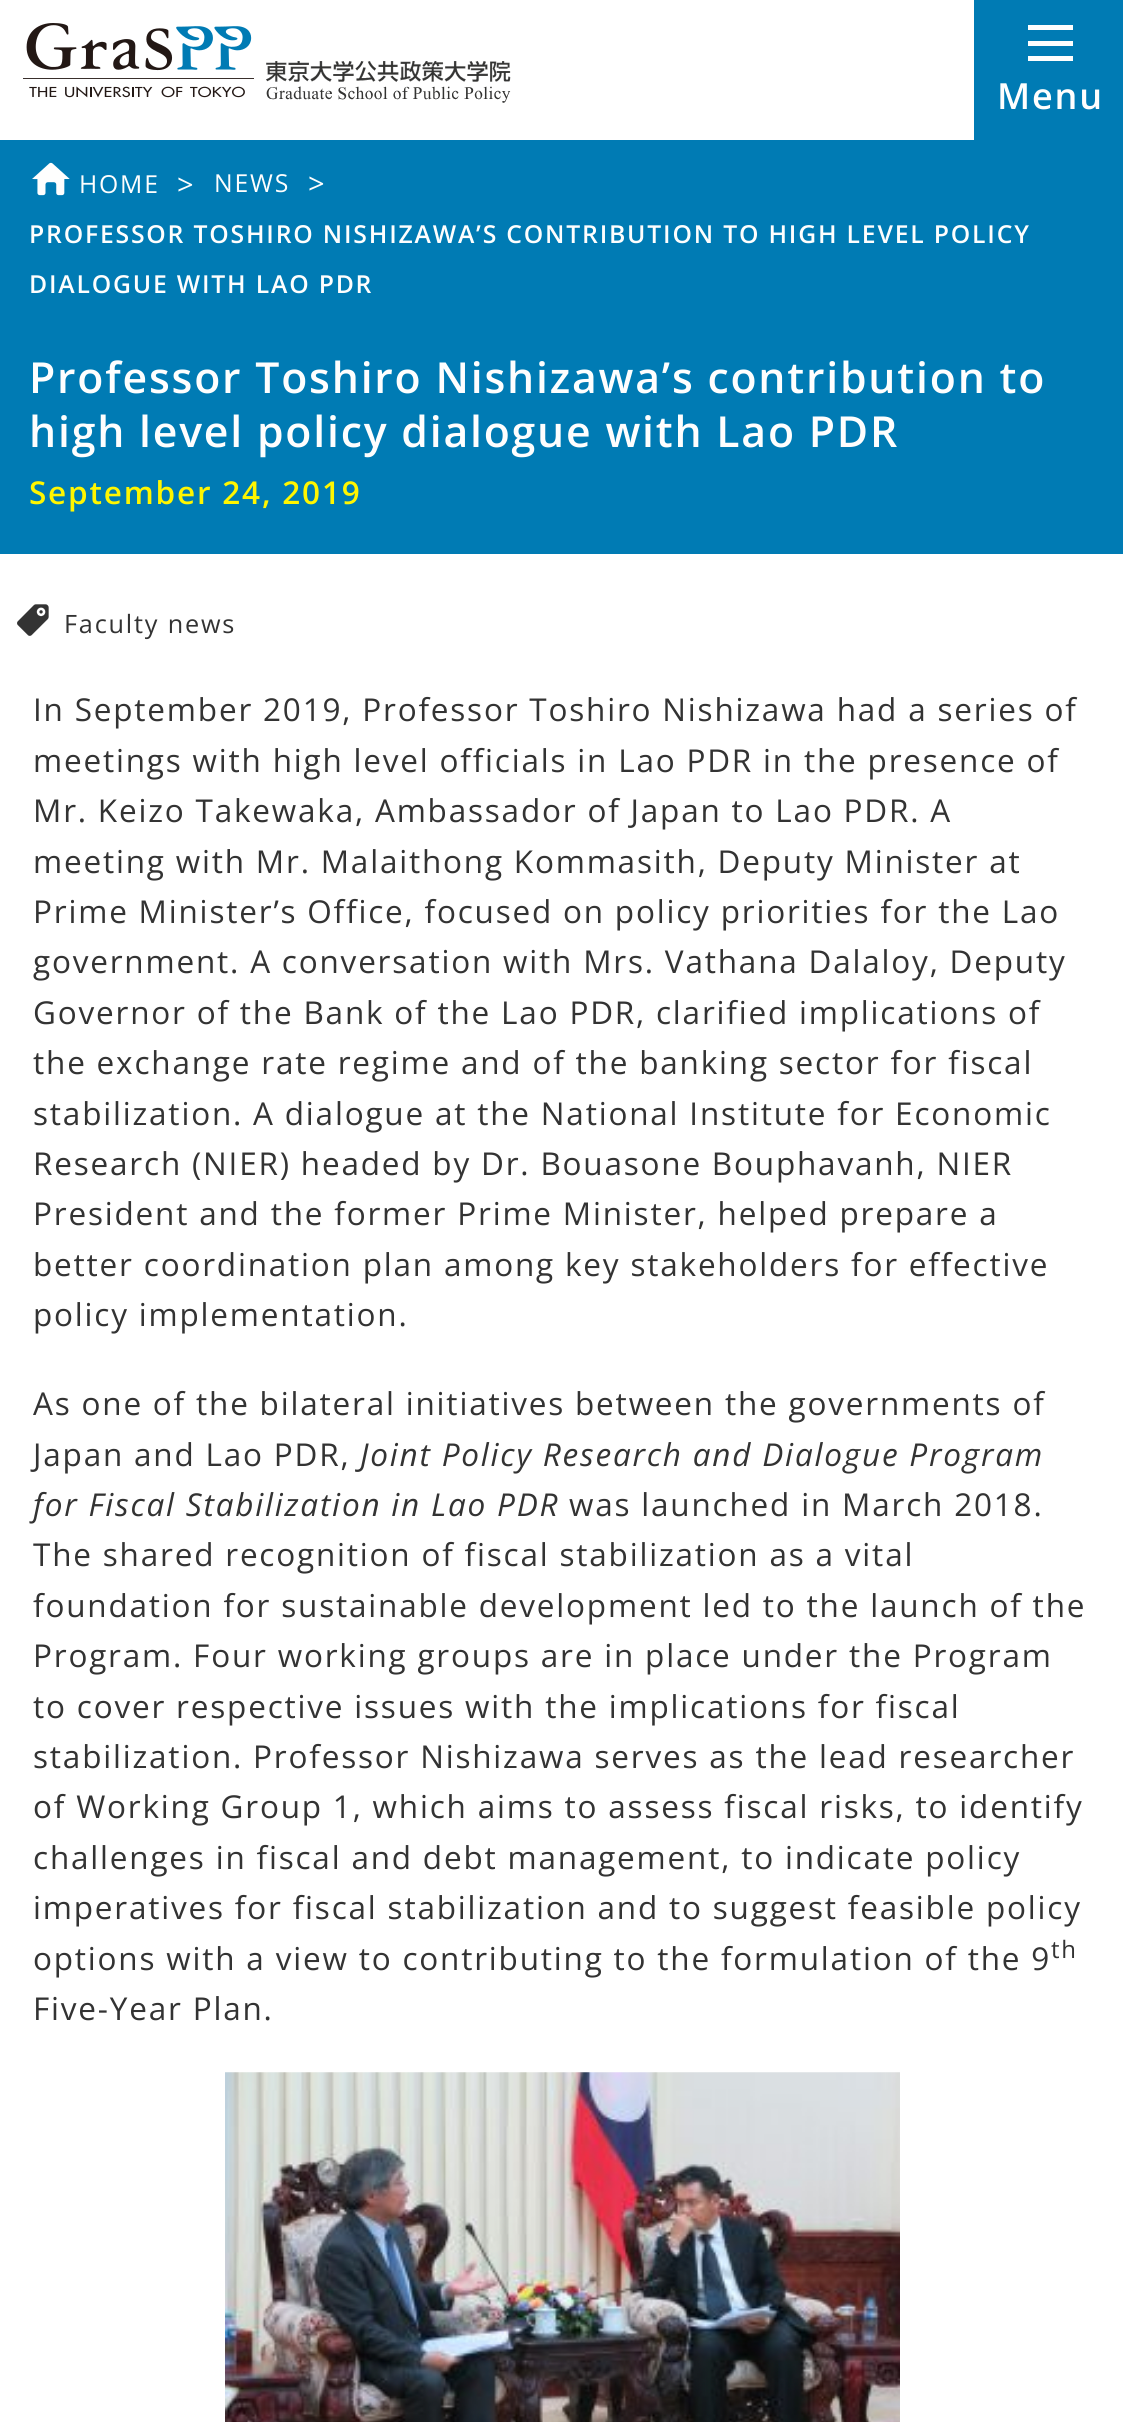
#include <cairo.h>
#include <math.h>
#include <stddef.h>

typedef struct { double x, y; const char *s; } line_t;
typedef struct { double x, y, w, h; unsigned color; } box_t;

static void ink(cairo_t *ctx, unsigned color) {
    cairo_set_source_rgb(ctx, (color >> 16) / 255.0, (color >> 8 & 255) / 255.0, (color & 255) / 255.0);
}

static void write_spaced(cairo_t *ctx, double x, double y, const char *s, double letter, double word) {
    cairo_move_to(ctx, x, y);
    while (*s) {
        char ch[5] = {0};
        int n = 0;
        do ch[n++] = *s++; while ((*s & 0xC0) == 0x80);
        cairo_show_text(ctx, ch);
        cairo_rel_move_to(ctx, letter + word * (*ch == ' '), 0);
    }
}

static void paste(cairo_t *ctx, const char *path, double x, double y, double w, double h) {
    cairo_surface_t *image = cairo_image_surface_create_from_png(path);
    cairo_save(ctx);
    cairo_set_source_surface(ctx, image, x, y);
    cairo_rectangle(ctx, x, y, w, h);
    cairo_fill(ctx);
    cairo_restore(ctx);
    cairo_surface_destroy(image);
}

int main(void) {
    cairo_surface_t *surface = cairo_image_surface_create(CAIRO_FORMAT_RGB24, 1123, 2422);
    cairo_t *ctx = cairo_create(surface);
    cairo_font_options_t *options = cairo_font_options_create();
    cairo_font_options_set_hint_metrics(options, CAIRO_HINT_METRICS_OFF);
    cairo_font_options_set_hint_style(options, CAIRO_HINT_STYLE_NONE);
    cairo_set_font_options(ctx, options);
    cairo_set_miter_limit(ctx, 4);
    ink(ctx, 0xFFFFFF);
    cairo_paint(ctx);
    paste(ctx, "media/1.png", 23, 23, 231, 75);
    paste(ctx, "media/2.png", 266, 61, 245, 42);
    {
        static const box_t items[] = {
            {974, 0, 149, 140, 0x007BB4},
            {1028, 56, 45, 5, 0xFEFEFE},
            {1028, 41, 45, 5, 0xFEFEFE},
            {1028, 25, 45, 5, 0xFEFEFE},
        };
        for (size_t i = 0; i < sizeof items / sizeof *items; i++) {
            ink(ctx, items[i].color);
            cairo_rectangle(ctx, items[i].x, items[i].y, items[i].w, items[i].h);
            cairo_fill(ctx);
        }
    }
    cairo_select_font_face(ctx, "Open Sans SemiBold", CAIRO_FONT_SLANT_NORMAL, CAIRO_FONT_WEIGHT_NORMAL);
    cairo_set_font_size(ctx, 36);
    write_spaced(ctx, 997, 109, "Menu", 1.8, 0);
    ink(ctx, 0x007BB4);
    cairo_rectangle(ctx, 0, 140, 1123, 414);
    cairo_fill(ctx);
    paste(ctx, "media/3.png", 32, 162, 38, 34);
    cairo_select_font_face(ctx, "Open Sans", CAIRO_FONT_SLANT_NORMAL, CAIRO_FONT_WEIGHT_NORMAL);
    cairo_set_font_size(ctx, 24.75);
    ink(ctx, 0xFEFEFE);
    write_spaced(ctx, 79, 193, "HOME", 1.8, 0);
    cairo_set_font_size(ctx, 29);
    write_spaced(ctx, 177, 195, ">", 1.8, 0);
    cairo_set_font_size(ctx, 24.75);
    write_spaced(ctx, 214, 192, "NEWS", 1.8, 0);
    cairo_set_font_size(ctx, 29);
    write_spaced(ctx, 308, 194, ">", 1.8, 0);
    cairo_select_font_face(ctx, "Open Sans SemiBold", CAIRO_FONT_SLANT_NORMAL, CAIRO_FONT_WEIGHT_NORMAL);
    cairo_set_font_size(ctx, 24.75);
    write_spaced(ctx, 29, 243, "PROFESSOR TOSHIRO NISHIZAWA’S CONTRIBUTION TO HIGH LEVEL POLICY", 1.8, 0);
    write_spaced(ctx, 29, 293, "DIALOGUE WITH LAO PDR", 1.8, 0);
    cairo_set_font_size(ctx, 42.75);
    write_spaced(ctx, 29, 393, "Professor Toshiro Nishizawa’s contribution to", 1.8, 0);
    write_spaced(ctx, 29, 447, "high level policy dialogue with Lao PDR", 1.8, 0);
    cairo_set_font_size(ctx, 31.5);
    ink(ctx, 0xFFF600);
    write_spaced(ctx, 29, 504, "September 24, 2019", 1.8, 0);
    paste(ctx, "media/4.png", 17, 604, 32, 32);
    cairo_select_font_face(ctx, "Open Sans", CAIRO_FONT_SLANT_NORMAL, CAIRO_FONT_WEIGHT_NORMAL);
    cairo_set_font_size(ctx, 25.25);
    ink(ctx, 0x333333);
    write_spaced(ctx, 64, 633, "Faculty news", 1.8, 0);
    cairo_set_font_size(ctx, 31.5);
    {
        static const line_t items[] = {
            {33, 721, "In September 2019, Professor Toshiro Nishizawa had a series of"},
            {33, 772, "meetings with high level officials in Lao PDR in the presence of"},
            {33, 822, "Mr. Keizo Takewaka, Ambassador of Japan to Lao PDR. A"},
            {33, 873, "meeting with Mr. Malaithong Kommasith, Deputy Minister at"},
            {33, 923, "Prime Minister’s Office, focused on policy priorities for the Lao"},
            {33, 973, "government. A conversation with Mrs. Vathana Dalaloy, Deputy"},
            {33, 1024, "Governor of the Bank of the Lao PDR, clarified implications of"},
            {33, 1074, "the exchange rate regime and of the banking sector for fiscal"},
            {33, 1125, "stabilization. A dialogue at the National Institute for Economic"},
            {33, 1175, "Research (NIER) headed by Dr. Bouasone Bouphavanh, NIER"},
            {33, 1225, "President and the former Prime Minister, helped prepare a"},
            {33, 1276, "better coordination plan among key stakeholders for effective"},
            {33, 1326, "policy implementation."},
            {33, 1415, "As one of the bilateral initiatives between the governments of"},
            {33, 1466, "Japan and Lao PDR,"},
        };
        for (size_t i = 0; i < sizeof items / sizeof *items; i++) {
            write_spaced(ctx, items[i].x, items[i].y, items[i].s, 1.8, 0);
        }
    }
    cairo_select_font_face(ctx, "Open Sans", CAIRO_FONT_SLANT_ITALIC, CAIRO_FONT_WEIGHT_NORMAL);
    write_spaced(ctx, 360, 1466, "Joint Policy Research and Dialogue Program", 1.8, 0);
    write_spaced(ctx, 33, 1516, "for Fiscal Stabilization in Lao PDR", 1.8, 0);
    cairo_select_font_face(ctx, "Open Sans", CAIRO_FONT_SLANT_NORMAL, CAIRO_FONT_WEIGHT_NORMAL);
    {
        static const line_t items[] = {
            {569, 1516, "was launched in March 2018."},
            {33, 1566, "The shared recognition of fiscal stabilization as a vital"},
            {33, 1617, "foundation for sustainable development led to the launch of the"},
            {33, 1667, "Program. Four working groups are in place under the Program"},
            {33, 1718, "to cover respective issues with the implications for fiscal"},
            {33, 1768, "stabilization. Professor Nishizawa serves as the lead researcher"},
            {33, 1818, "of Working Group 1, which aims to assess fiscal risks, to identify"},
            {33, 1869, "challenges in fiscal and debt management, to indicate policy"},
            {33, 1919, "imperatives for fiscal stabilization and to suggest feasible policy"},
            {33, 1970, "options with a view to contributing to the formulation of the 9"},
        };
        for (size_t i = 0; i < sizeof items / sizeof *items; i++) {
            write_spaced(ctx, items[i].x, items[i].y, items[i].s, 1.8, 0);
        }
    }
    cairo_set_font_size(ctx, 24);
    write_spaced(ctx, 1051, 1958, "th", 1.8, 0);
    cairo_set_font_size(ctx, 31.5);
    write_spaced(ctx, 33, 2020, "Five-Year Plan.", 1.8, 0);
    paste(ctx, "media/5.png", 225, 2072, 675, 350);
    cairo_surface_write_to_png(surface, "image.png");
    cairo_font_options_destroy(options);
    cairo_destroy(ctx);
    cairo_surface_destroy(surface);
    return 0;
}
